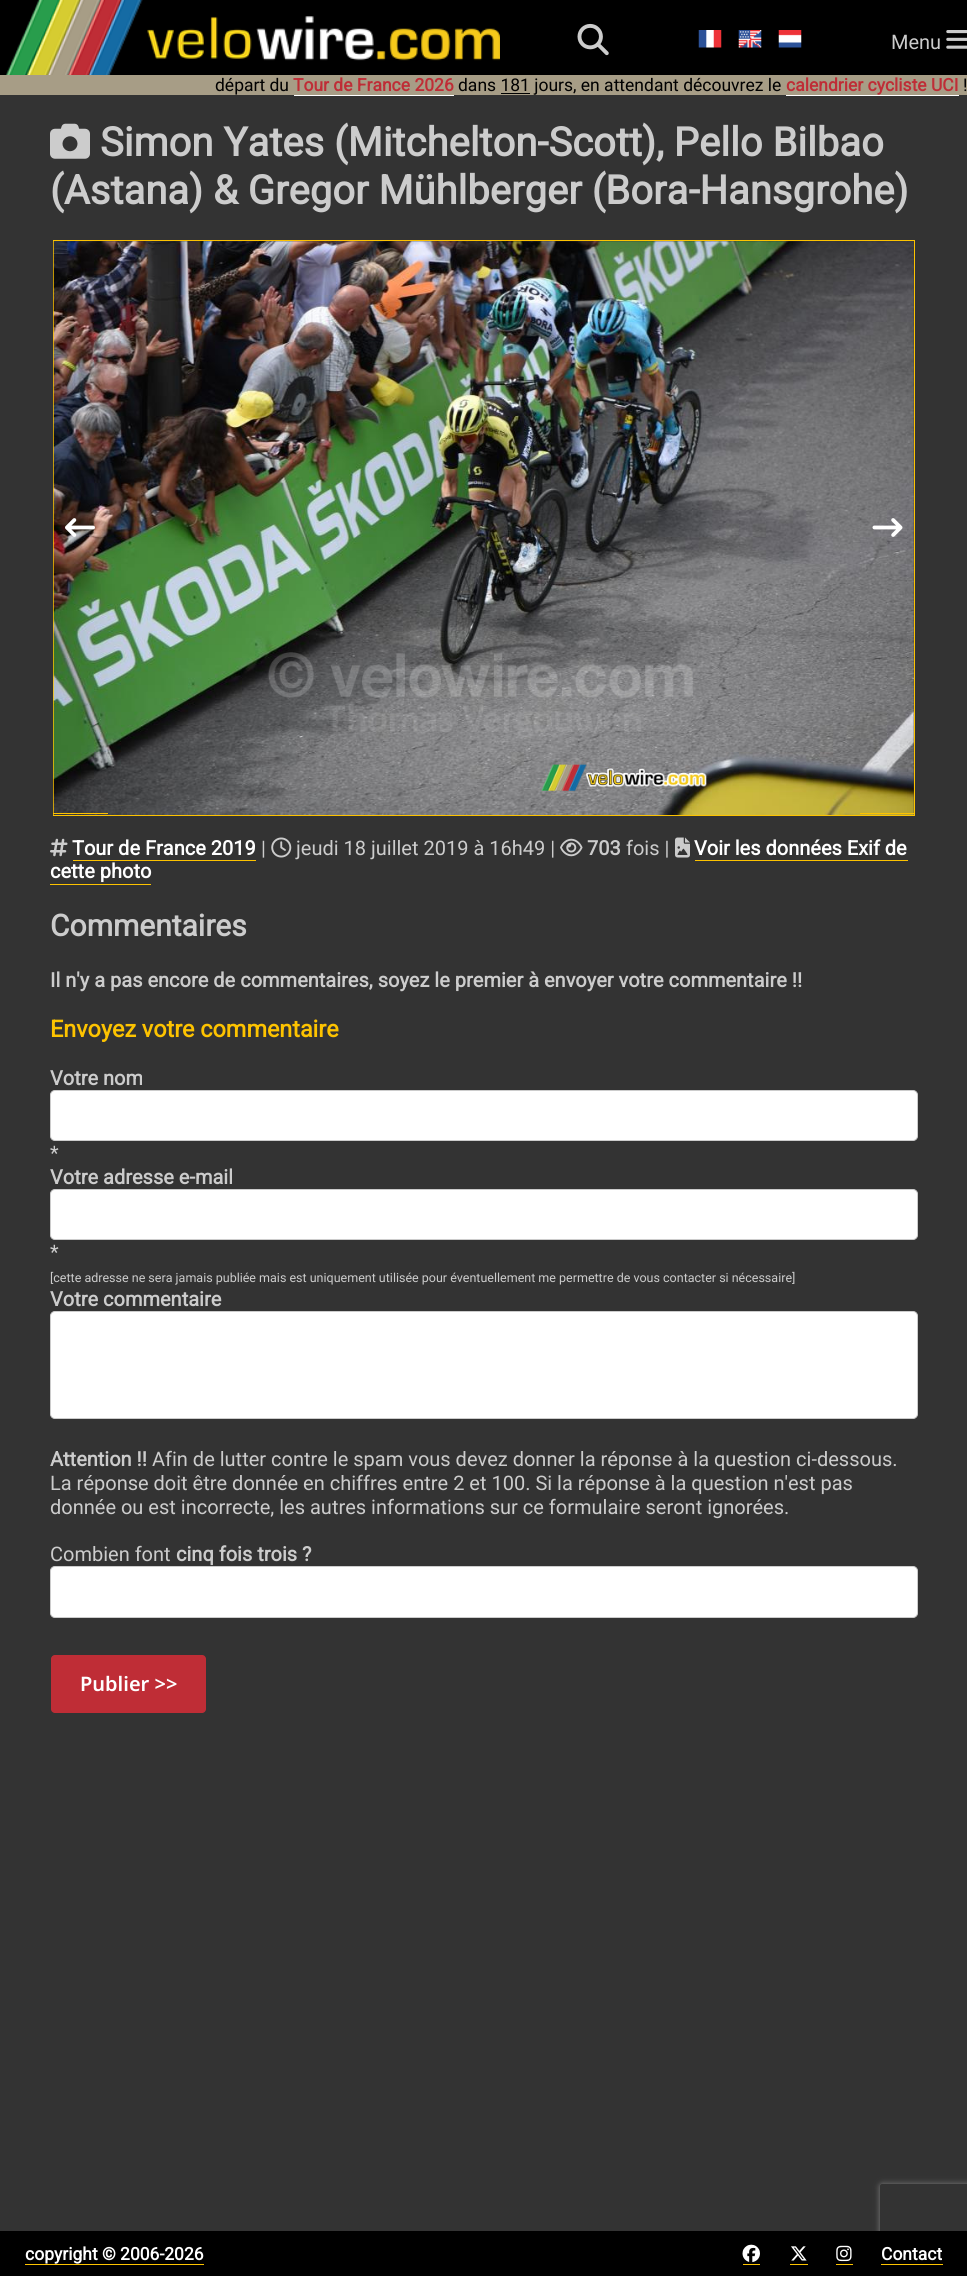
#include <cairo.h>
#include <math.h>
#include <stddef.h>

typedef struct { double x, y; const char *s; } line_t;

static void ink(cairo_t *ctx, unsigned color) {
    cairo_set_source_rgb(ctx, (color >> 16) / 255.0, (color >> 8 & 255) / 255.0, (color & 255) / 255.0);
}

static void round_path(cairo_t *ctx, double x, double y, double w, double h, double r) {
    cairo_new_sub_path(ctx);
    cairo_arc(ctx, x + w - r, y + h - r, r, 0, M_PI / 2);
    cairo_arc(ctx, x + r, y + h - r, r, M_PI / 2, M_PI);
    cairo_arc(ctx, x + r, y + r, r, M_PI, 1.5 * M_PI);
    cairo_arc(ctx, x + w - r, y + r, r, 1.5 * M_PI, 2 * M_PI);
    cairo_close_path(ctx);
}

static void blur_box(cairo_t *ctx, double x, double y, double w, double h, double r, double blur, double alpha) {
    cairo_push_group_with_content(ctx, CAIRO_CONTENT_ALPHA);
    cairo_set_operator(ctx, CAIRO_OPERATOR_SOURCE);
    for (int i = 15; i >= -15 && fmin(w, h) + blur * i / 3 > 0; i -= 2) {
        double e = blur * i / 6;
        cairo_set_source_rgba(ctx, 0, 0, 0, alpha * erfc((i - 1) / 8.5) / 2);
        round_path(ctx, x - e, y - e, w + 2 * e, h + 2 * e, fmax(0, fmin(r + e + blur * .6, fmin(w, h) / 2 + e)));
        cairo_fill(ctx);
    }
    cairo_pattern_t *soft = cairo_pop_group(ctx);
    cairo_mask(ctx, soft);
    cairo_pattern_destroy(soft);
}

static void paste(cairo_t *ctx, const char *path, double x, double y, double w, double h) {
    cairo_surface_t *image = cairo_image_surface_create_from_png(path);
    cairo_save(ctx);
    cairo_set_source_surface(ctx, image, x, y);
    cairo_rectangle(ctx, x, y, w, h);
    cairo_fill(ctx);
    cairo_restore(ctx);
    cairo_surface_destroy(image);
}

int main(void) {
    cairo_surface_t *surface = cairo_image_surface_create(CAIRO_FORMAT_RGB24, 967, 2276);
    cairo_t *ctx = cairo_create(surface);
    cairo_font_options_t *options = cairo_font_options_create();
    cairo_font_options_set_hint_metrics(options, CAIRO_HINT_METRICS_OFF);
    cairo_font_options_set_hint_style(options, CAIRO_HINT_STYLE_NONE);
    cairo_set_font_options(ctx, options);
    cairo_set_miter_limit(ctx, 4);
    ink(ctx, 0x333333);
    cairo_paint(ctx);
    ink(ctx, 0x000000);
    cairo_rectangle(ctx, 0, 0, 967, 75);
    cairo_fill(ctx);
    paste(ctx, "media/1.png", 6, 0, 494, 75);
    paste(ctx, "media/2.png", 577, 23, 32, 33);
    paste(ctx, "media/3.png", 698, 30, 24, 18);
    paste(ctx, "media/4.png", 738, 30, 24, 18);
    paste(ctx, "media/5.png", 778, 30, 24, 18);
    cairo_select_font_face(ctx, "Roboto", CAIRO_FONT_SLANT_NORMAL, CAIRO_FONT_WEIGHT_NORMAL);
    cairo_set_font_size(ctx, 20);
    ink(ctx, 0xCCCCCC);
    cairo_move_to(ctx, 891, 49);
    cairo_show_text(ctx, "Menu");
    paste(ctx, "media/6.png", 946, 30, 21, 19);
    ink(ctx, 0xA79D86);
    cairo_rectangle(ctx, 0, 75, 967, 20);
    cairo_fill(ctx);
    cairo_set_font_size(ctx, 17.5);
    ink(ctx, 0x000000);
    cairo_move_to(ctx, 215, 91);
    cairo_show_text(ctx, "départ du");
    cairo_select_font_face(ctx, "Roboto", CAIRO_FONT_SLANT_NORMAL, CAIRO_FONT_WEIGHT_BOLD);
    ink(ctx, 0xBF2D36);
    cairo_move_to(ctx, 293, 91);
    cairo_show_text(ctx, "Tour de France 2026");
    ink(ctx, 0xFFFFFF);
    cairo_rectangle(ctx, 294, 95, 160, 1);
    cairo_fill(ctx);
    cairo_select_font_face(ctx, "Roboto", CAIRO_FONT_SLANT_NORMAL, CAIRO_FONT_WEIGHT_NORMAL);
    ink(ctx, 0x000000);
    cairo_move_to(ctx, 458, 91);
    cairo_show_text(ctx, "dans 181 jours, en attendant découvrez le");
    cairo_select_font_face(ctx, "Roboto", CAIRO_FONT_SLANT_NORMAL, CAIRO_FONT_WEIGHT_BOLD);
    ink(ctx, 0xBF2D36);
    cairo_move_to(ctx, 786, 91);
    cairo_show_text(ctx, "calendrier cycliste UCI");
    ink(ctx, 0xFFFFFF);
    cairo_rectangle(ctx, 786, 95, 173, 1);
    cairo_fill(ctx);
    cairo_select_font_face(ctx, "Roboto", CAIRO_FONT_SLANT_NORMAL, CAIRO_FONT_WEIGHT_NORMAL);
    ink(ctx, 0x000000);
    cairo_move_to(ctx, 963, 91);
    cairo_show_text(ctx, "!");
    cairo_rectangle(ctx, 501, 93, 29, 1);
    cairo_fill(ctx);
    paste(ctx, "media/7.png", 50, 123, 40, 36);
    cairo_select_font_face(ctx, "Roboto", CAIRO_FONT_SLANT_NORMAL, CAIRO_FONT_WEIGHT_BOLD);
    cairo_set_font_size(ctx, 40);
    ink(ctx, 0xCCCCCC);
    cairo_move_to(ctx, 100, 156);
    cairo_show_text(ctx, "Simon Yates (Mitchelton-Scott), Pello Bilbao");
    cairo_move_to(ctx, 50, 204);
    cairo_show_text(ctx, "(Astana) & Gregor Mühlberger (Bora-Hansgrohe)");
    cairo_rectangle(ctx, 53.5, 240.5, 861, 575);
    ink(ctx, 0xFDC300);
    cairo_set_line_width(ctx, 1);
    cairo_stroke(ctx);
    paste(ctx, "media/8.png", 53, 241, 861, 574);
    cairo_rectangle(ctx, 53, 813, 55, 1);
    cairo_fill(ctx);
    paste(ctx, "media/9.png", 65, 518, 30, 19);
    cairo_rectangle(ctx, 860, 813, 55, 1);
    cairo_fill(ctx);
    paste(ctx, "media/10.png", 872, 518, 31, 19);
    paste(ctx, "media/11.png", 50, 838, 18, 19);
    cairo_set_font_size(ctx, 20);
    ink(ctx, 0xFFFFFF);
    cairo_move_to(ctx, 72, 855);
    cairo_show_text(ctx, "Tour de France 2019");
    ink(ctx, 0xFDC300);
    cairo_rectangle(ctx, 73, 860, 183, 1);
    cairo_fill(ctx);
    cairo_select_font_face(ctx, "Roboto", CAIRO_FONT_SLANT_NORMAL, CAIRO_FONT_WEIGHT_NORMAL);
    ink(ctx, 0xCCCCCC);
    cairo_move_to(ctx, 261, 855);
    cairo_show_text(ctx, "|");
    paste(ctx, "media/12.png", 271, 837, 21, 21);
    cairo_move_to(ctx, 296, 855);
    cairo_show_text(ctx, "jeudi 18 juillet 2019 à 16h49 |");
    paste(ctx, "media/13.png", 560, 838, 23, 19);
    cairo_select_font_face(ctx, "Roboto", CAIRO_FONT_SLANT_NORMAL, CAIRO_FONT_WEIGHT_BOLD);
    cairo_move_to(ctx, 587, 855);
    cairo_show_text(ctx, "703");
    cairo_select_font_face(ctx, "Roboto", CAIRO_FONT_SLANT_NORMAL, CAIRO_FONT_WEIGHT_NORMAL);
    cairo_move_to(ctx, 626, 855);
    cairo_show_text(ctx, "fois |");
    paste(ctx, "media/14.png", 675, 837, 15, 21);
    cairo_select_font_face(ctx, "Roboto", CAIRO_FONT_SLANT_NORMAL, CAIRO_FONT_WEIGHT_BOLD);
    ink(ctx, 0xFFFFFF);
    cairo_move_to(ctx, 694, 855);
    cairo_show_text(ctx, "Voir les données Exif de");
    ink(ctx, 0xFDC300);
    cairo_rectangle(ctx, 695, 860, 213, 1);
    cairo_fill(ctx);
    ink(ctx, 0xFFFFFF);
    cairo_move_to(ctx, 50, 878);
    cairo_show_text(ctx, "cette photo");
    ink(ctx, 0xFDC300);
    cairo_rectangle(ctx, 50, 884, 101, 1);
    cairo_fill(ctx);
    cairo_set_font_size(ctx, 30);
    ink(ctx, 0xCCCCCC);
    cairo_move_to(ctx, 50, 936);
    cairo_show_text(ctx, "Commentaires");
    cairo_set_font_size(ctx, 20);
    cairo_move_to(ctx, 50, 987);
    cairo_show_text(ctx, "Il n'y a pas encore de commentaires, soyez le premier à envoyer votre commentaire !!");
    cairo_set_font_size(ctx, 23.4);
    ink(ctx, 0xFDC300);
    cairo_move_to(ctx, 50, 1037);
    cairo_show_text(ctx, "Envoyez votre commentaire");
    cairo_set_font_size(ctx, 20);
    ink(ctx, 0xCCCCCC);
    cairo_move_to(ctx, 50, 1085);
    cairo_show_text(ctx, "Votre nom");
    ink(ctx, 0xFFFFFF);
    round_path(ctx, 50.5, 1090.5, 867, 50, 4.5);
    cairo_fill_preserve(ctx);
    ink(ctx, 0xCCCCCC);
    cairo_stroke(ctx);
    cairo_select_font_face(ctx, "Roboto", CAIRO_FONT_SLANT_NORMAL, CAIRO_FONT_WEIGHT_NORMAL);
    cairo_move_to(ctx, 50, 1160);
    cairo_show_text(ctx, "*");
    cairo_select_font_face(ctx, "Roboto", CAIRO_FONT_SLANT_NORMAL, CAIRO_FONT_WEIGHT_BOLD);
    cairo_move_to(ctx, 50, 1184);
    cairo_show_text(ctx, "Votre adresse e-mail");
    ink(ctx, 0xFFFFFF);
    round_path(ctx, 50.5, 1189.5, 867, 50, 4.5);
    cairo_fill_preserve(ctx);
    ink(ctx, 0xCCCCCC);
    cairo_stroke(ctx);
    cairo_select_font_face(ctx, "Roboto", CAIRO_FONT_SLANT_NORMAL, CAIRO_FONT_WEIGHT_NORMAL);
    cairo_move_to(ctx, 50, 1259);
    cairo_show_text(ctx, "*");
    cairo_set_font_size(ctx, 12.5);
    cairo_move_to(ctx, 50, 1282);
    cairo_show_text(ctx, "[cette adresse ne sera jamais publiée mais est uniquement utilisée pour éventuellement me permettre de vous contacter si nécessaire]");
    cairo_select_font_face(ctx, "Roboto", CAIRO_FONT_SLANT_NORMAL, CAIRO_FONT_WEIGHT_BOLD);
    cairo_set_font_size(ctx, 20);
    cairo_move_to(ctx, 50, 1306);
    cairo_show_text(ctx, "Votre commentaire");
    ink(ctx, 0xFFFFFF);
    round_path(ctx, 50.5, 1311.5, 867, 107, 4.5);
    cairo_fill_preserve(ctx);
    ink(ctx, 0xCCCCCC);
    cairo_stroke(ctx);
    cairo_move_to(ctx, 50, 1466);
    cairo_show_text(ctx, "Attention !!");
    cairo_select_font_face(ctx, "Roboto", CAIRO_FONT_SLANT_NORMAL, CAIRO_FONT_WEIGHT_NORMAL);
    {
        static const line_t items[] = {
            {152, 1466, "Afin de lutter contre le spam vous devez donner la réponse à la question ci-dessous."},
            {50, 1490, "La réponse doit être donnée en chiffres entre 2 et 100. Si la réponse à la question n'est pas"},
            {50, 1514, "donnée ou est incorrecte, les autres informations sur ce formulaire seront ignorées."},
            {50, 1561, "Combien font"},
        };
        for (size_t i = 0; i < sizeof items / sizeof *items; i++) {
            cairo_move_to(ctx, items[i].x, items[i].y);
            cairo_show_text(ctx, items[i].s);
        }
    }
    cairo_select_font_face(ctx, "Roboto", CAIRO_FONT_SLANT_NORMAL, CAIRO_FONT_WEIGHT_BOLD);
    cairo_move_to(ctx, 176, 1561);
    cairo_show_text(ctx, "cinq fois trois ?");
    ink(ctx, 0xFFFFFF);
    round_path(ctx, 50.5, 1566.5, 867, 51, 4.5);
    cairo_fill_preserve(ctx);
    ink(ctx, 0xCCCCCC);
    cairo_stroke(ctx);
    ink(ctx, 0xBF2D36);
    round_path(ctx, 51, 1655, 155, 58, 4);
    cairo_fill(ctx);
    cairo_select_font_face(ctx, "Noto Sans SemiBold", CAIRO_FONT_SLANT_NORMAL, CAIRO_FONT_WEIGHT_NORMAL);
    ink(ctx, 0xFFFFFF);
    cairo_move_to(ctx, 80, 1691);
    cairo_show_text(ctx, "Publier >>");
    cairo_save(ctx);
    cairo_set_fill_rule(ctx, CAIRO_FILL_RULE_EVEN_ODD);
    cairo_new_path(ctx);
    cairo_move_to(ctx, 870, 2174);
    cairo_line_to(ctx, 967, 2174);
    cairo_line_to(ctx, 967, 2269);
    cairo_line_to(ctx, 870, 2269);
    cairo_close_path(ctx);
    cairo_move_to(ctx, 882.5, 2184);
    cairo_line_to(ctx, 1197.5, 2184);
    cairo_curve_to(ctx, 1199, 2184, 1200, 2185, 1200, 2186.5);
    cairo_line_to(ctx, 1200, 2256.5);
    cairo_curve_to(ctx, 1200, 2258, 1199, 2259, 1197.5, 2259);
    cairo_line_to(ctx, 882.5, 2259);
    cairo_curve_to(ctx, 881, 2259, 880, 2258, 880, 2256.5);
    cairo_line_to(ctx, 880, 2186.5);
    cairo_curve_to(ctx, 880, 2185, 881, 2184, 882.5, 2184);
    cairo_close_path(ctx);
    cairo_clip(ctx);
    ink(ctx, 0x808080);
    blur_box(ctx, 880, 2184, 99, 75, 2.5, 3, 1);
    cairo_restore(ctx);
    ink(ctx, 0x000000);
    cairo_rectangle(ctx, 0, 2231, 967, 45);
    cairo_fill(ctx);
    cairo_select_font_face(ctx, "Roboto", CAIRO_FONT_SLANT_NORMAL, CAIRO_FONT_WEIGHT_BOLD);
    cairo_set_font_size(ctx, 17.5);
    ink(ctx, 0xFFFFFF);
    cairo_move_to(ctx, 25, 2260);
    cairo_show_text(ctx, "copyright © 2006-2026");
    ink(ctx, 0xFDC300);
    cairo_rectangle(ctx, 25, 2264, 179, 1);
    cairo_fill(ctx);
    cairo_rectangle(ctx, 743, 2264, 17, 1);
    cairo_fill(ctx);
    paste(ctx, "media/15.png", 742, 2244, 18, 19);
    cairo_rectangle(ctx, 790, 2264, 18, 1);
    cairo_fill(ctx);
    paste(ctx, "media/16.png", 791, 2246, 16, 15);
    cairo_rectangle(ctx, 836, 2264, 17, 1);
    cairo_fill(ctx);
    paste(ctx, "media/17.png", 836, 2245, 16, 17);
    ink(ctx, 0xFFFFFF);
    cairo_move_to(ctx, 881, 2260);
    cairo_show_text(ctx, "Contact");
    ink(ctx, 0xFDC300);
    cairo_rectangle(ctx, 881, 2264, 62, 1);
    cairo_fill(ctx);
    cairo_surface_write_to_png(surface, "image.png");
    cairo_font_options_destroy(options);
    cairo_destroy(ctx);
    cairo_surface_destroy(surface);
    return 0;
}
